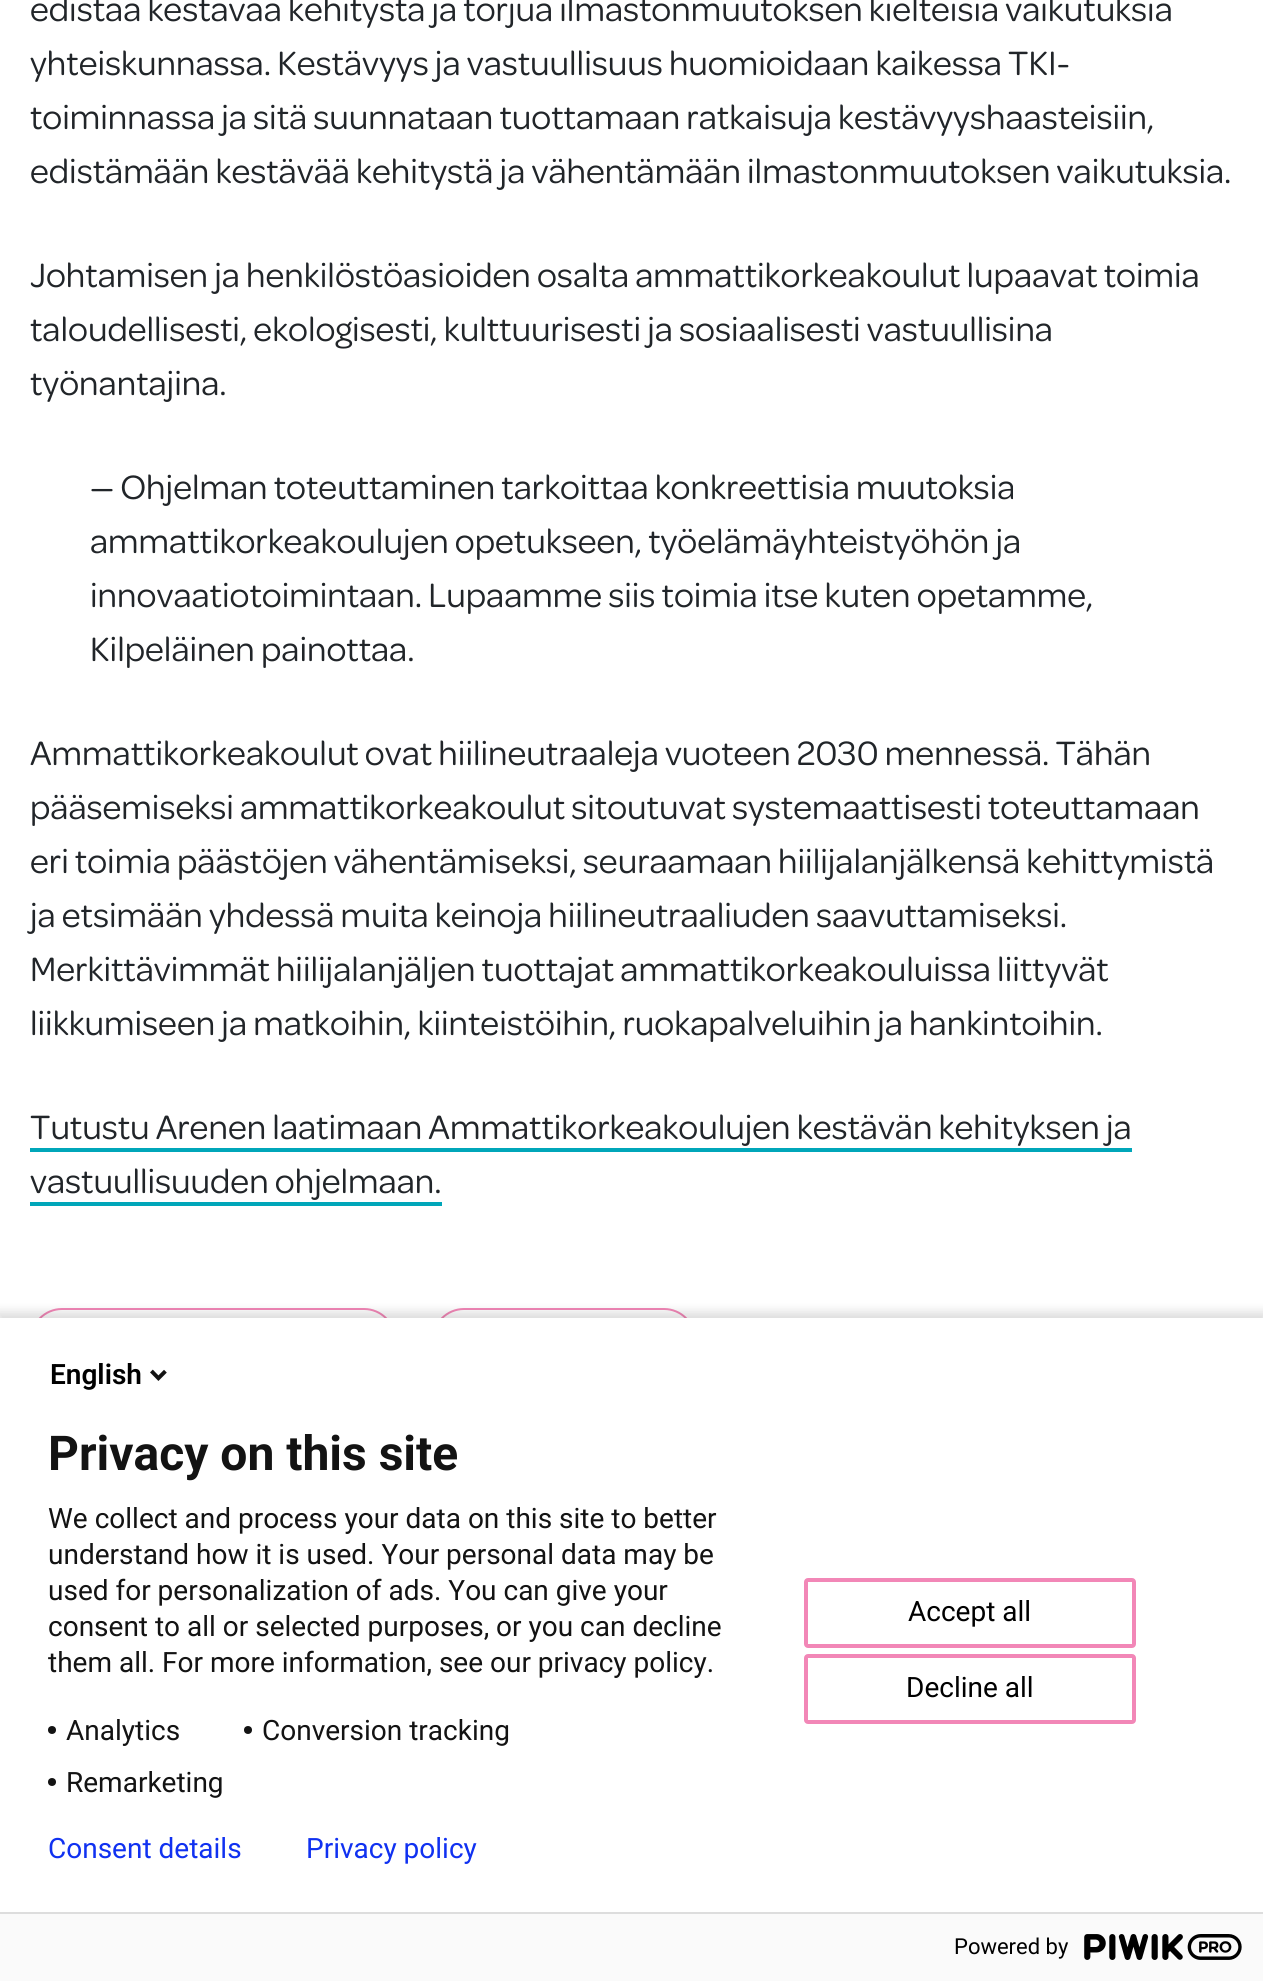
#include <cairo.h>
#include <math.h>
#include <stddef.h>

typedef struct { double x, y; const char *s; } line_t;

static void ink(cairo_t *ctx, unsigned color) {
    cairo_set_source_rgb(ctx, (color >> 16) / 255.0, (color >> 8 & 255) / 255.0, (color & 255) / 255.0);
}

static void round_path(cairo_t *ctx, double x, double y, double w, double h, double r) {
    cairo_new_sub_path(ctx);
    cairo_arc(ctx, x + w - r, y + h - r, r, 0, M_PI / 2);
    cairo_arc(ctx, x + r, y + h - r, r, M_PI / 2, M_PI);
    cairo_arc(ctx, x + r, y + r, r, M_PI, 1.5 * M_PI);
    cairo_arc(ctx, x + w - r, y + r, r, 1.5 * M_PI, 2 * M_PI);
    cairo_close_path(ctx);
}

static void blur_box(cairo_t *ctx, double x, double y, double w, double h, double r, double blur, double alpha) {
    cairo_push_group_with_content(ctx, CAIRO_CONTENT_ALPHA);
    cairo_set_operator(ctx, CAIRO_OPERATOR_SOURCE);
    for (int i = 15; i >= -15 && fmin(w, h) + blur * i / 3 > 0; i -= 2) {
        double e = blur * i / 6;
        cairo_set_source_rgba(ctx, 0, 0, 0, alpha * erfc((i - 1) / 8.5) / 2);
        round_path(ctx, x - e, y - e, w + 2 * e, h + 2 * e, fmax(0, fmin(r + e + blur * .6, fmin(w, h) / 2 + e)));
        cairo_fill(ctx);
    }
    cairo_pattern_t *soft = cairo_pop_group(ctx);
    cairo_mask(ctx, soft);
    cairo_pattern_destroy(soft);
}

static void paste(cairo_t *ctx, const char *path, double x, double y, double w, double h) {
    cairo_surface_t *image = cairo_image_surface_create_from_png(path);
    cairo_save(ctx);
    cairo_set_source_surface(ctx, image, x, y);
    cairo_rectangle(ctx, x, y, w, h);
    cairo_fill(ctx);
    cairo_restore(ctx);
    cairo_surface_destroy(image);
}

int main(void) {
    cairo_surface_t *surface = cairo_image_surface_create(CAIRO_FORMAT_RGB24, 1263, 1981);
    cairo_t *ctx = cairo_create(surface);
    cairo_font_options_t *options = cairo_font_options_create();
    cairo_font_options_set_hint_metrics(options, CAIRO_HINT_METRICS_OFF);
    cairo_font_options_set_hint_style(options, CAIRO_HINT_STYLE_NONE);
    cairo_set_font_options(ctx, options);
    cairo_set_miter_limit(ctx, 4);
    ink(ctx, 0xFFFFFF);
    cairo_paint(ctx);
    cairo_select_font_face(ctx, "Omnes", CAIRO_FONT_SLANT_NORMAL, CAIRO_FONT_WEIGHT_NORMAL);
    cairo_set_font_size(ctx, 36);
    ink(ctx, 0x212529);
    {
        static const line_t items[] = {
            {30, 21, "edistää kestävää kehitystä ja torjua ilmastonmuutoksen kielteisiä vaikutuksia"},
            {30, 75, "yhteiskunnassa. Kestävyys ja vastuullisuus huomioidaan kaikessa TKI-"},
            {30, 129, "toiminnassa ja sitä suunnataan tuottamaan ratkaisuja kestävyyshaasteisiin,"},
            {30, 183, "edistämään kestävää kehitystä ja vähentämään ilmastonmuutoksen vaikutuksia."},
            {30, 287, "Johtamisen ja henkilöstöasioiden osalta ammattikorkeakoulut lupaavat toimia"},
            {30, 341, "taloudellisesti, ekologisesti, kulttuurisesti ja sosiaalisesti vastuullisina"},
            {30, 395, "työnantajina."},
            {90, 499, "— Ohjelman toteuttaminen tarkoittaa konkreettisia muutoksia"},
            {90, 553, "ammattikorkeakoulujen opetukseen, työelämäyhteistyöhön ja"},
            {90, 607, "innovaatiotoimintaan. Lupaamme siis toimia itse kuten opetamme,"},
            {90, 661, "Kilpeläinen painottaa."},
            {30, 765, "Ammattikorkeakoulut ovat hiilineutraaleja vuoteen 2030 mennessä. Tähän"},
            {30, 819, "pääsemiseksi ammattikorkeakoulut sitoutuvat systemaattisesti toteuttamaan"},
            {30, 873, "eri toimia päästöjen vähentämiseksi, seuraamaan hiilijalanjälkensä kehittymistä"},
            {30, 927, "ja etsimään yhdessä muita keinoja hiilineutraaliuden saavuttamiseksi."},
            {30, 981, "Merkittävimmät hiilijalanjäljen tuottajat ammattikorkeakouluissa liittyvät"},
            {30, 1035, "liikkumiseen ja matkoihin, kiinteistöihin, ruokapalveluihin ja hankintoihin."},
            {30, 1139, "Tutustu Arenen laatimaan Ammattikorkeakoulujen kestävän kehityksen ja"},
        };
        for (size_t i = 0; i < sizeof items / sizeof *items; i++) {
            cairo_move_to(ctx, items[i].x, items[i].y);
            cairo_show_text(ctx, items[i].s);
        }
    }
    ink(ctx, 0x00A6B9);
    cairo_rectangle(ctx, 30, 1148, 1102, 4);
    cairo_fill(ctx);
    ink(ctx, 0x212529);
    cairo_move_to(ctx, 30, 1193);
    cairo_show_text(ctx, "vastuullisuuden ohjelmaan.");
    ink(ctx, 0x00A6B9);
    cairo_rectangle(ctx, 30, 1202, 412, 4);
    cairo_fill(ctx);
    round_path(ctx, 31, 1309, 364, 62, 31);
    ink(ctx, 0xF287B7);
    cairo_stroke(ctx);
    round_path(ctx, 433, 1309, 262, 62, 31);
    cairo_stroke(ctx);
    ink(ctx, 0x000000);
    blur_box(ctx, -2, 1312, 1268, 668, 0, 5, 0.14);
    ink(ctx, 0xFFFFFF);
    cairo_rectangle(ctx, 0, 1318, 1263, 594);
    cairo_fill(ctx);
    cairo_select_font_face(ctx, "Roboto SemiBold", CAIRO_FONT_SLANT_NORMAL, CAIRO_FONT_WEIGHT_NORMAL);
    cairo_set_font_size(ctx, 28);
    ink(ctx, 0x000000);
    cairo_move_to(ctx, 50, 1384);
    cairo_show_text(ctx, "English");
    paste(ctx, "media/1.png", 150, 1369, 17, 12);
    cairo_select_font_face(ctx, "Roboto", CAIRO_FONT_SLANT_NORMAL, CAIRO_FONT_WEIGHT_BOLD);
    cairo_set_font_size(ctx, 48);
    ink(ctx, 0x131313);
    cairo_move_to(ctx, 48, 1470);
    cairo_show_text(ctx, "Privacy on this site");
    cairo_select_font_face(ctx, "Roboto", CAIRO_FONT_SLANT_NORMAL, CAIRO_FONT_WEIGHT_NORMAL);
    cairo_set_font_size(ctx, 28);
    {
        static const line_t items[] = {
            {48, 1528, "We collect and process your data on this site to better"},
            {48, 1564, "understand how it is used. Your personal data may be"},
            {48, 1600, "used for personalization of ads. You can give your"},
            {48, 1636, "consent to all or selected purposes, or you can decline"},
            {48, 1672, "them all. For more information, see our privacy policy."},
        };
        for (size_t i = 0; i < sizeof items / sizeof *items; i++) {
            cairo_move_to(ctx, items[i].x, items[i].y);
            cairo_show_text(ctx, items[i].s);
        }
    }
    cairo_new_path(ctx);
    cairo_arc(ctx, 52, 1730, 4, 0, 2 * M_PI);
    cairo_fill(ctx);
    cairo_move_to(ctx, 66, 1740);
    cairo_show_text(ctx, "Analytics");
    cairo_new_path(ctx);
    cairo_arc(ctx, 248, 1730, 4, 0, 2 * M_PI);
    cairo_fill(ctx);
    cairo_move_to(ctx, 262, 1740);
    cairo_show_text(ctx, "Conversion tracking");
    cairo_new_path(ctx);
    cairo_arc(ctx, 52, 1782, 4, 0, 2 * M_PI);
    cairo_fill(ctx);
    cairo_move_to(ctx, 66, 1792);
    cairo_show_text(ctx, "Remarketing");
    round_path(ctx, 806, 1580, 328, 66, 2);
    ink(ctx, 0xF287B7);
    cairo_set_line_width(ctx, 4);
    cairo_stroke(ctx);
    ink(ctx, 0x000000);
    cairo_move_to(ctx, 908, 1621);
    cairo_show_text(ctx, "Accept all");
    round_path(ctx, 806, 1656, 328, 66, 2);
    ink(ctx, 0xF287B7);
    cairo_stroke(ctx);
    ink(ctx, 0x000000);
    cairo_move_to(ctx, 906, 1697);
    cairo_show_text(ctx, "Decline all");
    ink(ctx, 0x1031F1);
    cairo_move_to(ctx, 48, 1858);
    cairo_show_text(ctx, "Consent details");
    cairo_move_to(ctx, 306, 1858);
    cairo_show_text(ctx, "Privacy policy");
    ink(ctx, 0xFAFAFA);
    cairo_rectangle(ctx, 0, 1914, 1263, 67);
    cairo_fill(ctx);
    ink(ctx, 0xDDDDDD);
    cairo_rectangle(ctx, 0, 1912, 1263, 2);
    cairo_fill(ctx);
    cairo_set_font_size(ctx, 22);
    ink(ctx, 0x000000);
    cairo_move_to(ctx, 954, 1954);
    cairo_show_text(ctx, "Powered by");
    paste(ctx, "media/2.png", 1084, 1934, 158, 26);
    cairo_surface_write_to_png(surface, "image.png");
    cairo_font_options_destroy(options);
    cairo_destroy(ctx);
    cairo_surface_destroy(surface);
    return 0;
}
